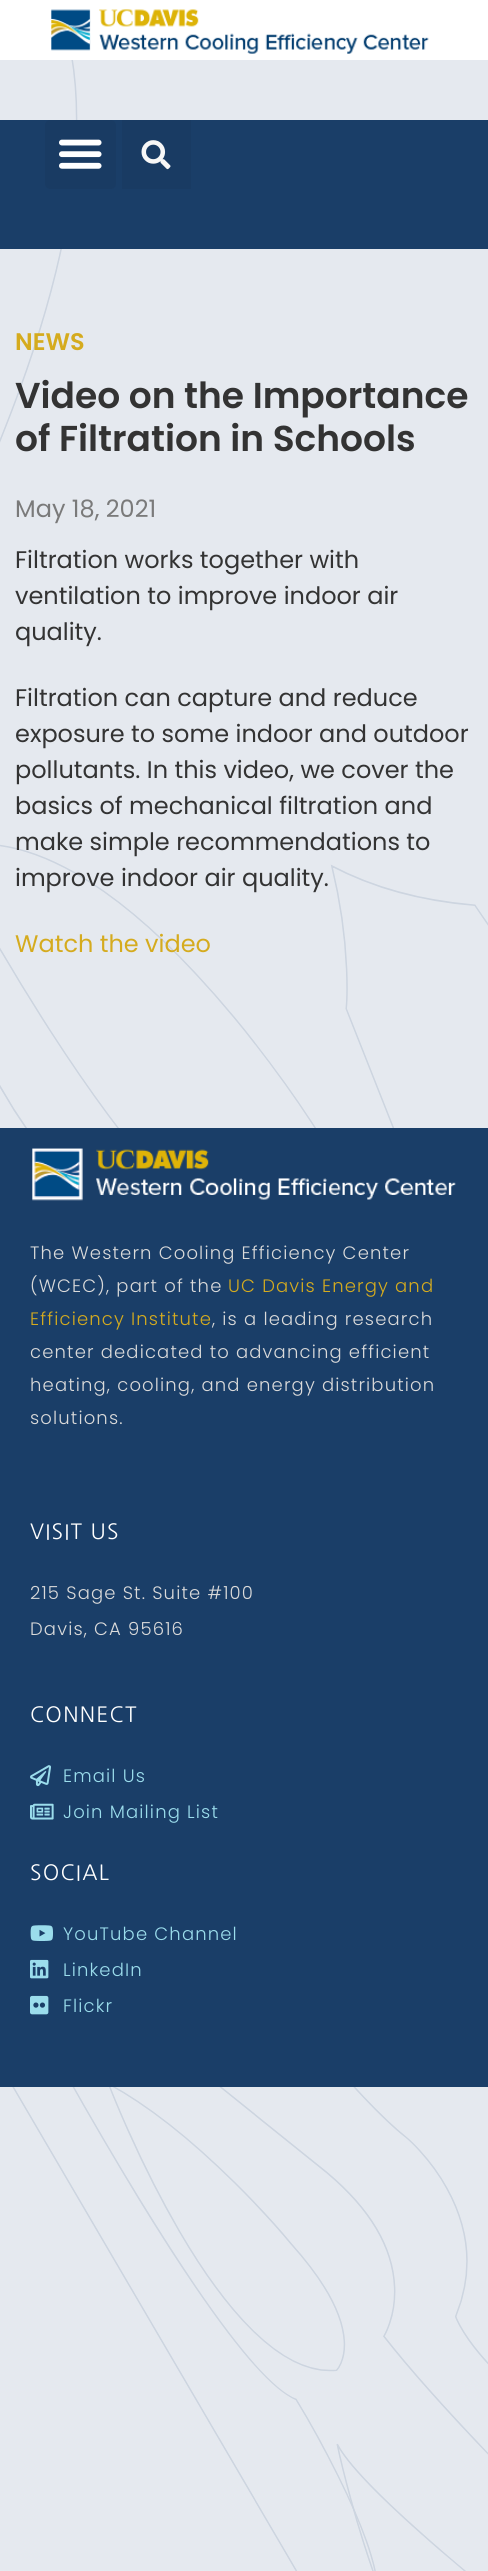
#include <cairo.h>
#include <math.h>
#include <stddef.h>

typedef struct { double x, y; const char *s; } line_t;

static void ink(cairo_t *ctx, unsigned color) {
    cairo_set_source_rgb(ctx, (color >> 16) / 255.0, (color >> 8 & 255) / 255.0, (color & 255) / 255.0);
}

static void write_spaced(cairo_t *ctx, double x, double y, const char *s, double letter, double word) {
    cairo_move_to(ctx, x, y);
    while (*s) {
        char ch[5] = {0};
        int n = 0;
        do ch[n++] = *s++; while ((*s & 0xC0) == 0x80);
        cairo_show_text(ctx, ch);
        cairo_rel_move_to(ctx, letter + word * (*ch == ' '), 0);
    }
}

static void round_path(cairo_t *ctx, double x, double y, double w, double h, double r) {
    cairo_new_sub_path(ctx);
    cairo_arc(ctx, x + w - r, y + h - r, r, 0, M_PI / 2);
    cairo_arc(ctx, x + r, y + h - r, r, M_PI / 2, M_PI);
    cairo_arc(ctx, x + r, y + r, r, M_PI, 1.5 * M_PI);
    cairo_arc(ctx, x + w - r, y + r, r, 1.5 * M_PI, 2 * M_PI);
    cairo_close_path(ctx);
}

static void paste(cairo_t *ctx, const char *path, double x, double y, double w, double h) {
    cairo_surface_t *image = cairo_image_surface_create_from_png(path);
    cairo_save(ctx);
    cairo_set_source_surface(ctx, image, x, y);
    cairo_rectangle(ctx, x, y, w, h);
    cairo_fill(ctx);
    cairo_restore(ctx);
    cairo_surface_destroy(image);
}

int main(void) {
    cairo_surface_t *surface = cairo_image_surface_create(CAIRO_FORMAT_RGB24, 488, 2571);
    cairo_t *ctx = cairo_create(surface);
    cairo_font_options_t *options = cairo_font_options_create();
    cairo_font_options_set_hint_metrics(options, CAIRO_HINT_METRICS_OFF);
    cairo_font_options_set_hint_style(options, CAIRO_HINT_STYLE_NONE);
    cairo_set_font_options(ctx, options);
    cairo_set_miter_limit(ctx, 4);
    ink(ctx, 0xE5E9EF);
    cairo_paint(ctx);
    paste(ctx, "media/1.png", 0, 60, 488, 2511);
    ink(ctx, 0xFFFFFF);
    cairo_rectangle(ctx, 0, 0, 488, 60);
    cairo_fill(ctx);
    paste(ctx, "media/2.png", 51, 9, 378, 45);
    ink(ctx, 0x1A3E68);
    cairo_rectangle(ctx, 0, 120, 488, 129);
    cairo_fill(ctx);
    ink(ctx, 0x193B63);
    round_path(ctx, 45, 120, 71, 69, 5);
    cairo_fill(ctx);
    paste(ctx, "media/3.png", 59, 139, 43, 30);
    cairo_rectangle(ctx, 122, 120, 69, 69);
    cairo_fill(ctx);
    paste(ctx, "media/4.png", 141, 140, 30, 30);
    cairo_select_font_face(ctx, "Poppins SemiBold", CAIRO_FONT_SLANT_NORMAL, CAIRO_FONT_WEIGHT_NORMAL);
    cairo_set_font_size(ctx, 24);
    ink(ctx, 0xD5AB1E);
    cairo_move_to(ctx, 15, 350);
    cairo_show_text(ctx, "NEWS");
    cairo_set_font_size(ctx, 36);
    ink(ctx, 0x333333);
    cairo_move_to(ctx, 15, 408);
    cairo_show_text(ctx, "Video on the Importance");
    cairo_move_to(ctx, 15, 451);
    cairo_show_text(ctx, "of Filtration in Schools");
    cairo_select_font_face(ctx, "Poppins", CAIRO_FONT_SLANT_NORMAL, CAIRO_FONT_WEIGHT_NORMAL);
    cairo_set_font_size(ctx, 24);
    ink(ctx, 0x7A7A7A);
    cairo_move_to(ctx, 15, 517);
    cairo_show_text(ctx, "May 18, 2021");
    ink(ctx, 0x333333);
    {
        static const line_t items[] = {
            {15, 568, "Filtration works together with"},
            {15, 604, "ventilation to improve indoor air"},
            {15, 640, "quality."},
            {15, 706, "Filtration can capture and reduce"},
            {15, 742, "exposure to some indoor and outdoor"},
            {15, 778, "pollutants. In this video, we cover the"},
            {15, 814, "basics of mechanical filtration and"},
            {15, 850, "make simple recommendations to"},
            {15, 886, "improve indoor air quality."},
        };
        for (size_t i = 0; i < sizeof items / sizeof *items; i++) {
            cairo_move_to(ctx, items[i].x, items[i].y);
            cairo_show_text(ctx, items[i].s);
        }
    }
    ink(ctx, 0xD5AB1E);
    cairo_move_to(ctx, 15, 952);
    cairo_show_text(ctx, "Watch the video");
    ink(ctx, 0x1A3E68);
    cairo_rectangle(ctx, 0, 1128, 488, 959);
    cairo_fill(ctx);
    paste(ctx, "media/5.png", 32, 1148, 424, 53);
    cairo_select_font_face(ctx, "Poppins Light", CAIRO_FONT_SLANT_NORMAL, CAIRO_FONT_WEIGHT_NORMAL);
    cairo_set_font_size(ctx, 18);
    ink(ctx, 0xDADADA);
    write_spaced(ctx, 30, 1259, "The Western Cooling Efficiency Center", 1.15, 0);
    write_spaced(ctx, 30, 1292, "(WCEC), part of the", 1.15, 0);
    ink(ctx, 0xD5AB1E);
    write_spaced(ctx, 228, 1292, "UC Davis Energy and", 1.15, 0);
    write_spaced(ctx, 30, 1325, "Efficiency Institute", 1.15, 0);
    ink(ctx, 0xDADADA);
    {
        static const line_t items[] = {
            {212, 1325, ", is a leading research"},
            {30, 1358, "center dedicated to advancing efficient"},
            {30, 1391, "heating, cooling, and energy distribution"},
            {30, 1424, "solutions."},
        };
        for (size_t i = 0; i < sizeof items / sizeof *items; i++) {
            write_spaced(ctx, items[i].x, items[i].y, items[i].s, 1.15, 0);
        }
    }
    cairo_select_font_face(ctx, "NanumGothic", CAIRO_FONT_SLANT_NORMAL, CAIRO_FONT_WEIGHT_NORMAL);
    cairo_set_font_size(ctx, 21);
    ink(ctx, 0xFFFFFF);
    write_spaced(ctx, 30, 1539, "VISIT US", 1.25, 0);
    cairo_select_font_face(ctx, "Poppins Light", CAIRO_FONT_SLANT_NORMAL, CAIRO_FONT_WEIGHT_NORMAL);
    cairo_set_font_size(ctx, 18);
    ink(ctx, 0xDADADA);
    write_spaced(ctx, 30, 1599, "215 Sage St. Suite #100", 1.15, 0);
    write_spaced(ctx, 30, 1635, "Davis, CA 95616", 1.15, 0);
    cairo_select_font_face(ctx, "NanumGothic", CAIRO_FONT_SLANT_NORMAL, CAIRO_FONT_WEIGHT_NORMAL);
    cairo_set_font_size(ctx, 21);
    ink(ctx, 0xFFFFFF);
    write_spaced(ctx, 30, 1722, "CONNECT", 1.25, 0);
    paste(ctx, "media/6.png", 30, 1765, 21, 22);
    cairo_select_font_face(ctx, "Poppins Light", CAIRO_FONT_SLANT_NORMAL, CAIRO_FONT_WEIGHT_NORMAL);
    cairo_set_font_size(ctx, 18);
    ink(ctx, 0x9BDDEC);
    write_spaced(ctx, 63, 1782, "Email Us", 1.15, 0);
    paste(ctx, "media/7.png", 30, 1803, 24, 17);
    write_spaced(ctx, 63, 1818, "Join Mailing List", 1.15, 0);
    cairo_select_font_face(ctx, "NanumGothic", CAIRO_FONT_SLANT_NORMAL, CAIRO_FONT_WEIGHT_NORMAL);
    cairo_set_font_size(ctx, 21);
    ink(ctx, 0xFFFFFF);
    write_spaced(ctx, 30, 1880, "SOCIAL", 1.25, 0);
    paste(ctx, "media/8.png", 30, 1925, 23, 16);
    cairo_select_font_face(ctx, "Poppins Light", CAIRO_FONT_SLANT_NORMAL, CAIRO_FONT_WEIGHT_NORMAL);
    cairo_set_font_size(ctx, 18);
    ink(ctx, 0x9BDDEC);
    write_spaced(ctx, 63, 1940, "YouTube Channel", 1.15, 0);
    paste(ctx, "media/9.png", 30, 1959, 19, 20);
    write_spaced(ctx, 63, 1976, "LinkedIn", 1.15, 0);
    paste(ctx, "media/10.png", 30, 1995, 19, 20);
    write_spaced(ctx, 63, 2012, "Flickr", 1.15, 0);
    cairo_surface_write_to_png(surface, "image.png");
    cairo_font_options_destroy(options);
    cairo_destroy(ctx);
    cairo_surface_destroy(surface);
    return 0;
}
